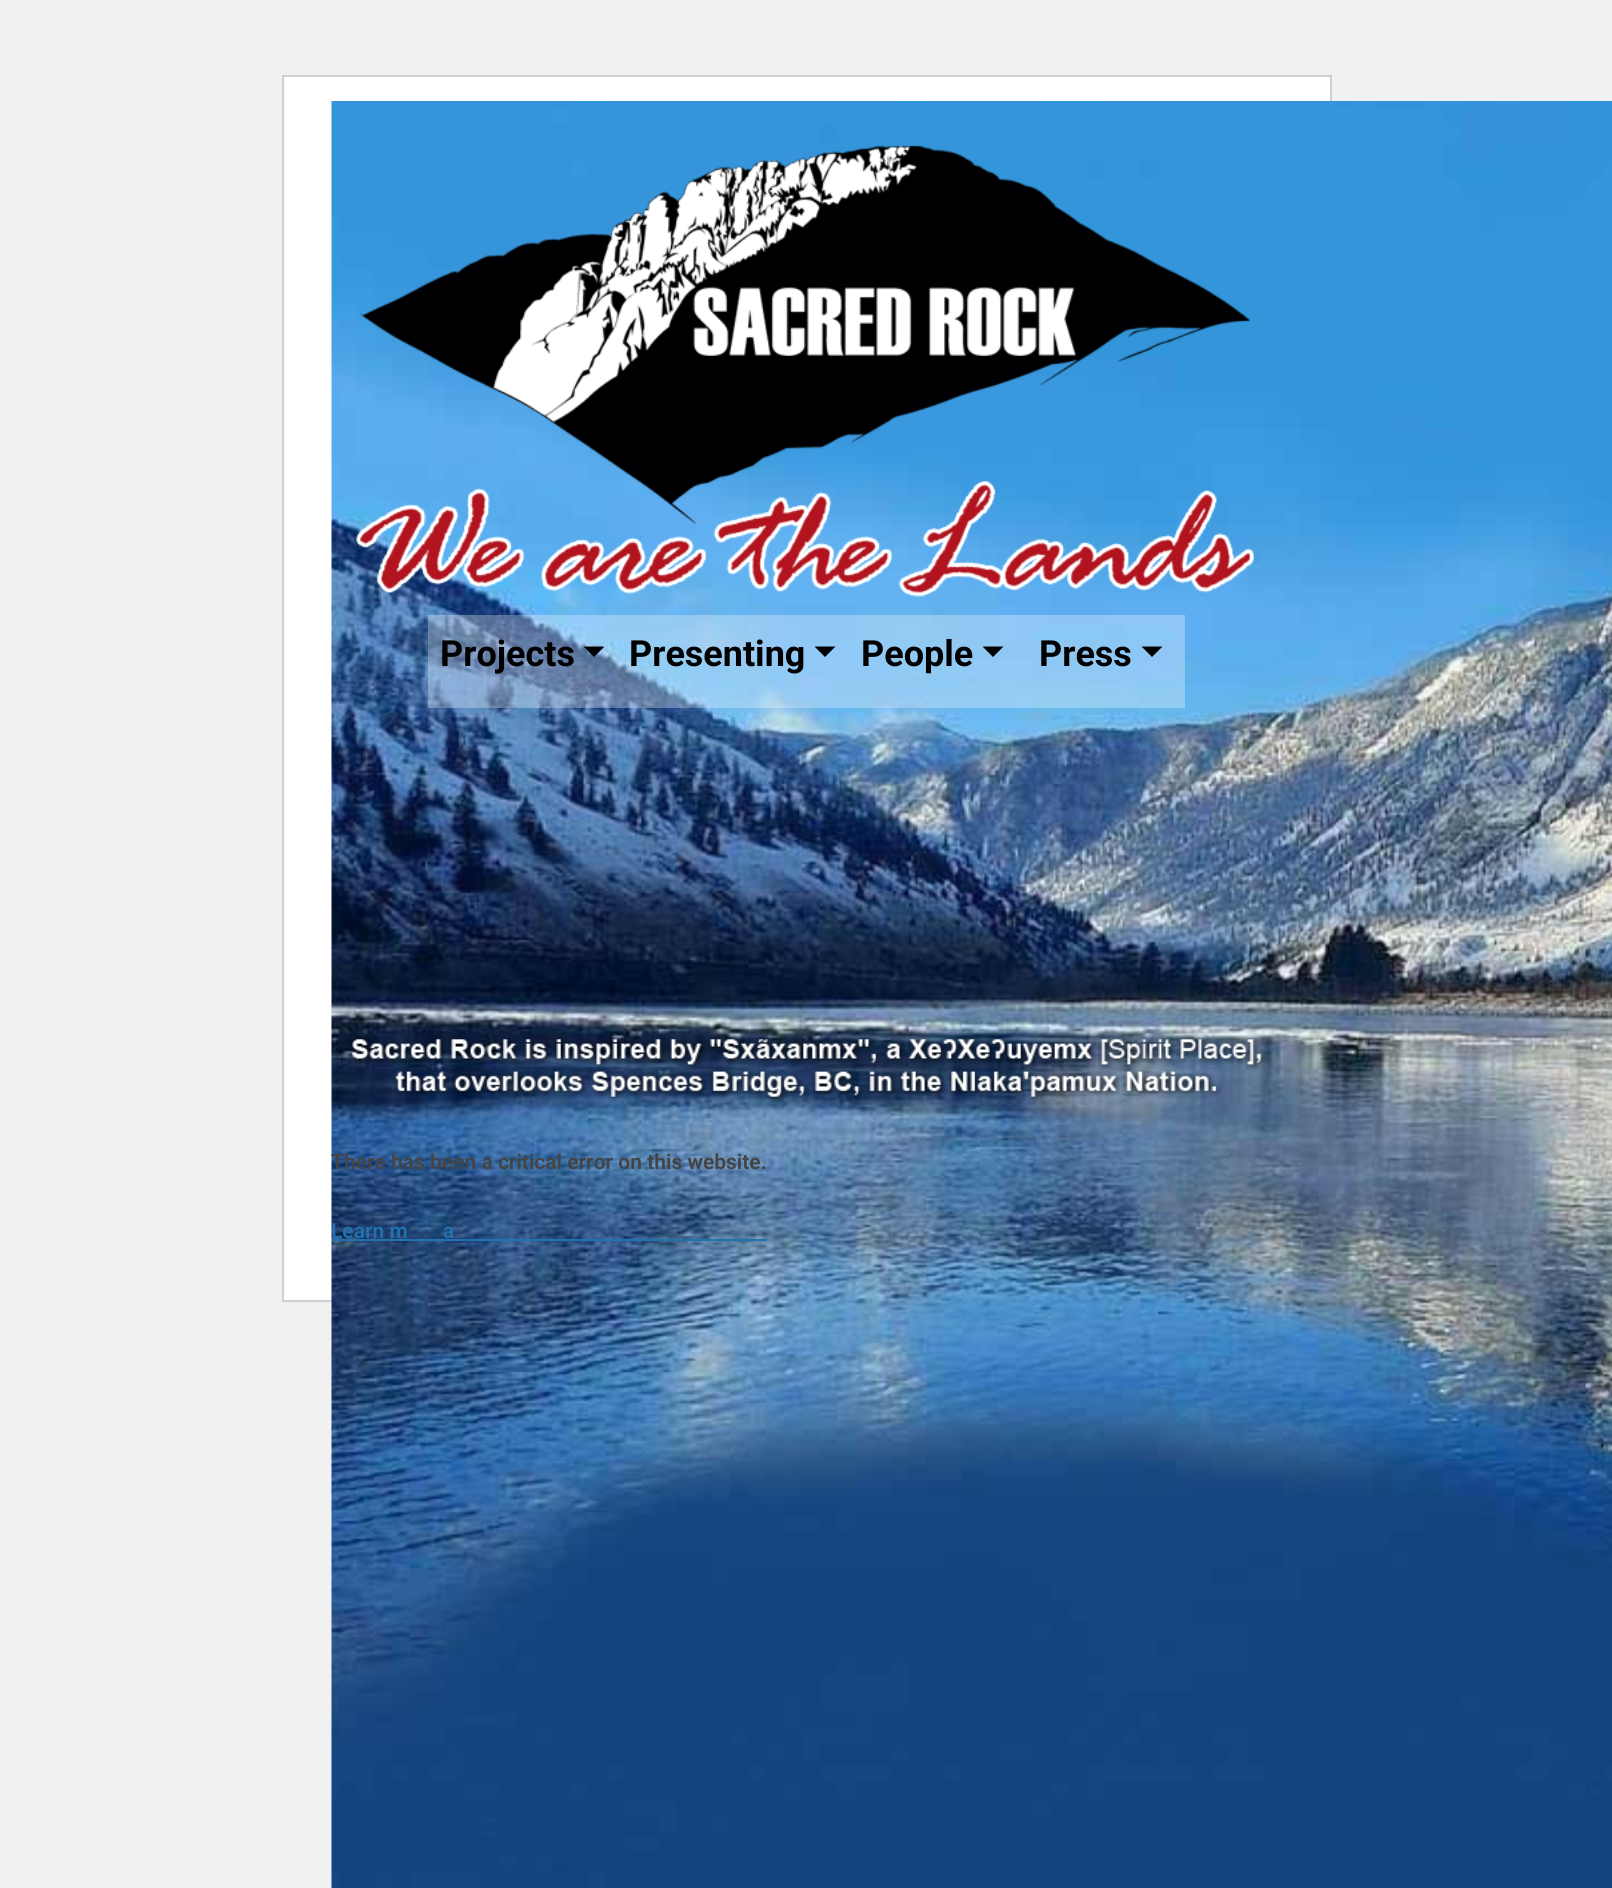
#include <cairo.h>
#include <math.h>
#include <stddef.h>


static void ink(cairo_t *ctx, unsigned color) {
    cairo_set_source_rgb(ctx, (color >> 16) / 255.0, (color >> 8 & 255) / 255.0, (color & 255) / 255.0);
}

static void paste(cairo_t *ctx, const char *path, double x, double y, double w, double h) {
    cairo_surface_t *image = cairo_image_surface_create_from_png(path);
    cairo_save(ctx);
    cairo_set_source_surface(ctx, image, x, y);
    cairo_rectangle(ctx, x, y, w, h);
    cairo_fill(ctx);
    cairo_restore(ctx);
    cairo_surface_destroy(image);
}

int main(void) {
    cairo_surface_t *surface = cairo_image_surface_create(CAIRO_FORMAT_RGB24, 1612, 1888);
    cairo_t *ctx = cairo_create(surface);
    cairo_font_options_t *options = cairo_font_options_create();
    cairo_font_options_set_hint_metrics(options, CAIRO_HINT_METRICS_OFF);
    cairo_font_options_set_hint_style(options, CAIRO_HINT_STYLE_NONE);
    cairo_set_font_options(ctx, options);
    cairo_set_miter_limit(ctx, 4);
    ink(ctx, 0xF1F1F1);
    cairo_paint(ctx);
    ink(ctx, 0xFFFFFF);
    cairo_rectangle(ctx, 283, 76, 1048, 1225);
    cairo_fill_preserve(ctx);
    ink(ctx, 0xCCD0D4);
    cairo_stroke(ctx);
    paste(ctx, "media/1.png", 331, 101, 1281, 1787);
    paste(ctx, "media/2.png", 356, 145, 898, 452);
    cairo_set_source_rgba(ctx, 1, 1, 1, 0.3);
    cairo_rectangle(ctx, 428, 615, 757, 93);
    cairo_fill(ctx);
    cairo_select_font_face(ctx, "Roboto", CAIRO_FONT_SLANT_NORMAL, CAIRO_FONT_WEIGHT_BOLD);
    cairo_set_font_size(ctx, 36);
    ink(ctx, 0x000000);
    cairo_move_to(ctx, 440, 666);
    cairo_show_text(ctx, "Projects");
    cairo_new_path(ctx);
    cairo_move_to(ctx, 583.5, 646.5);
    cairo_line_to(ctx, 604.5, 646.5);
    cairo_line_to(ctx, 594, 657);
    cairo_close_path(ctx);
    cairo_fill(ctx);
    cairo_move_to(ctx, 629, 666);
    cairo_show_text(ctx, "Presenting");
    cairo_new_path(ctx);
    cairo_move_to(ctx, 814.5, 646.5);
    cairo_line_to(ctx, 835.5, 646.5);
    cairo_line_to(ctx, 825, 657);
    cairo_close_path(ctx);
    cairo_fill(ctx);
    cairo_move_to(ctx, 861, 666);
    cairo_show_text(ctx, "People");
    cairo_new_path(ctx);
    cairo_move_to(ctx, 982.5, 646.5);
    cairo_line_to(ctx, 1003.5, 646.5);
    cairo_line_to(ctx, 993, 657);
    cairo_close_path(ctx);
    cairo_fill(ctx);
    cairo_move_to(ctx, 1039, 666);
    cairo_show_text(ctx, "Press");
    cairo_new_path(ctx);
    cairo_move_to(ctx, 1141.5, 646.5);
    cairo_line_to(ctx, 1162.5, 646.5);
    cairo_line_to(ctx, 1152, 657);
    cairo_close_path(ctx);
    cairo_fill(ctx);
    paste(ctx, "media/3.png", 349, 1035, 918, 68);
    cairo_select_font_face(ctx, "Roboto SemiBold", CAIRO_FONT_SLANT_NORMAL, CAIRO_FONT_WEIGHT_NORMAL);
    cairo_set_font_size(ctx, 21);
    ink(ctx, 0x444444);
    cairo_move_to(ctx, 331, 1169);
    cairo_show_text(ctx, "There has been a critical error on this website.");
    ink(ctx, 0x2271B1);
    cairo_move_to(ctx, 331, 1238);
    cairo_show_text(ctx, "Learn m");
    cairo_move_to(ctx, 443, 1238);
    cairo_show_text(ctx, "a");
    cairo_rectangle(ctx, 332, 1239, 435, 2);
    cairo_fill(ctx);
    cairo_surface_write_to_png(surface, "image.png");
    cairo_font_options_destroy(options);
    cairo_destroy(ctx);
    cairo_surface_destroy(surface);
    return 0;
}
